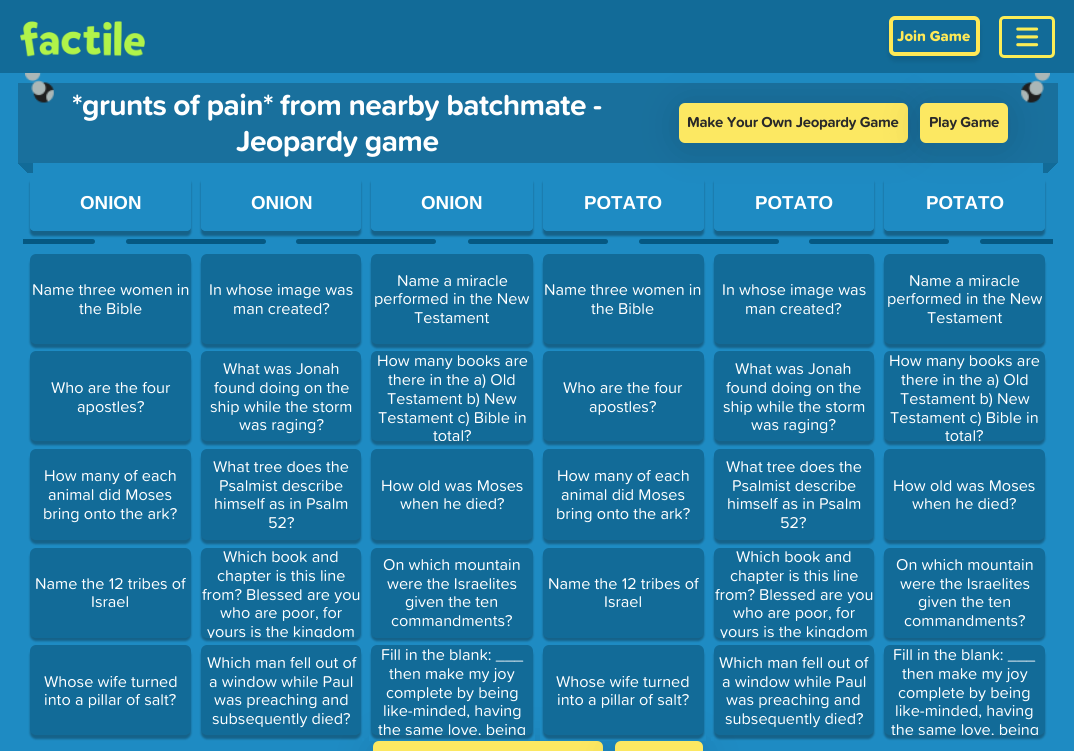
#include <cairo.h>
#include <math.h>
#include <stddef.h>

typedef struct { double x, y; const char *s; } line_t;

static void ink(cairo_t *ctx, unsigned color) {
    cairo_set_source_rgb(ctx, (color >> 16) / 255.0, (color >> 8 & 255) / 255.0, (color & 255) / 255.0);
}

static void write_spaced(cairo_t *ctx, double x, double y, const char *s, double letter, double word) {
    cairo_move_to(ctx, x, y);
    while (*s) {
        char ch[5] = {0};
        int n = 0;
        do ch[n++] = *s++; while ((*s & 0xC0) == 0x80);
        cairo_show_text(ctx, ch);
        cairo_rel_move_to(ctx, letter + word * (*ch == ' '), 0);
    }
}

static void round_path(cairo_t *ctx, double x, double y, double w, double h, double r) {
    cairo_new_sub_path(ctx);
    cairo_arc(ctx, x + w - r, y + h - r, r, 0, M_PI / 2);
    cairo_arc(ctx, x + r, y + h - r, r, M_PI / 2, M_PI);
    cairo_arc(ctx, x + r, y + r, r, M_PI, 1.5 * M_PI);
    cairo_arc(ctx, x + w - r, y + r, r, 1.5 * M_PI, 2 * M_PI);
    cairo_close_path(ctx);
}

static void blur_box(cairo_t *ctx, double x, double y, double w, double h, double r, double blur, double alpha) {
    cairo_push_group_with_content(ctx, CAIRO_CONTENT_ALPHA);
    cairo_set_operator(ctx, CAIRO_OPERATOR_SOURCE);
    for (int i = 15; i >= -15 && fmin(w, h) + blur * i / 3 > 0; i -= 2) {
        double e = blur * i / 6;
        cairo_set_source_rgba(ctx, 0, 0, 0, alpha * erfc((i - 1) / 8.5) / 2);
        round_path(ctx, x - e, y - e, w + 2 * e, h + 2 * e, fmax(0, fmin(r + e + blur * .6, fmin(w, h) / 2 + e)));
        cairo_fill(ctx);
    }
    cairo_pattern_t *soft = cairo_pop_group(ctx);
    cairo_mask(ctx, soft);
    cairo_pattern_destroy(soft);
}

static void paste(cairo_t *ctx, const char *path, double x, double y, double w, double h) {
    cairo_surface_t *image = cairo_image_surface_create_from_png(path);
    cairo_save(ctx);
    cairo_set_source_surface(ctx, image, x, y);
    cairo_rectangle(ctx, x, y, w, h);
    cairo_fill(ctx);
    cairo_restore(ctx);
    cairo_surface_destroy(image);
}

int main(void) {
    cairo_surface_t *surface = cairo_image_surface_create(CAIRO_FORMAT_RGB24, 1074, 751);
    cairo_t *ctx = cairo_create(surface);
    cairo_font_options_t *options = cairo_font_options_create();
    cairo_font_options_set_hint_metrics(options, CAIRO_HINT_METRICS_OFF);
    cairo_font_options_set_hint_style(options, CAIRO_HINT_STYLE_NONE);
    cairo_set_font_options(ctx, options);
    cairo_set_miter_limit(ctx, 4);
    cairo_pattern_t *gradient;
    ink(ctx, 0x1E8BC3);
    cairo_paint(ctx);
    ink(ctx, 0x19709D);
    cairo_rectangle(ctx, 18, 83, 1040, 80);
    cairo_fill(ctx);
    ink(ctx, 0x000000);
    blur_box(ctx, 679, 106, 229, 40, 6, 20.5, 0.12);
    paste(ctx, "media/4.png", 1021, 73, 29, 30);
    ink(ctx, 0xFCE862);
    round_path(ctx, 679, 103, 229, 40, 6);
    cairo_fill(ctx);
    gradient = cairo_pattern_create_linear(1058, 177, 1043, 162);
    cairo_pattern_add_color_stop_rgba(gradient, 0.49, 0.118, 0.545, 0.765, 1);
    cairo_pattern_add_color_stop_rgba(gradient, 0.5, 0.071, 0.42, 0.596, 1);
    cairo_set_source(ctx, gradient);
    cairo_pattern_destroy(gradient);
    cairo_rectangle(ctx, 1043, 163, 14, 14);
    cairo_fill(ctx);
    ink(ctx, 0x1E8BC3);
    cairo_rectangle(ctx, 1043, 173, 4, 4);
    cairo_fill(ctx);
    ink(ctx, 0x000000);
    blur_box(ctx, 920, 106, 88, 40, 6, 20.5, 0.12);
    ink(ctx, 0x126B98);
    cairo_rectangle(ctx, 0, 0, 1074, 73);
    cairo_fill(ctx);
    paste(ctx, "media/1.png", 20, 21, 125, 36);
    cairo_save(ctx);
    cairo_set_fill_rule(ctx, CAIRO_FILL_RULE_EVEN_ODD);
    cairo_new_path(ctx);
    cairo_move_to(ctx, 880, 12);
    cairo_line_to(ctx, 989, 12);
    cairo_line_to(ctx, 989, 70);
    cairo_line_to(ctx, 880, 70);
    cairo_close_path(ctx);
    cairo_move_to(ctx, 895, 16);
    cairo_line_to(ctx, 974, 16);
    cairo_curve_to(ctx, 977.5, 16, 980, 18.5, 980, 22);
    cairo_line_to(ctx, 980, 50);
    cairo_curve_to(ctx, 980, 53.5, 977.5, 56, 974, 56);
    cairo_line_to(ctx, 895, 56);
    cairo_curve_to(ctx, 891.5, 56, 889, 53.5, 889, 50);
    cairo_line_to(ctx, 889, 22);
    cairo_curve_to(ctx, 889, 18.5, 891.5, 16, 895, 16);
    cairo_close_path(ctx);
    cairo_clip(ctx);
    ink(ctx, 0x000000);
    blur_box(ctx, 889, 21, 91, 40, 6, 2.5, 0.11);
    cairo_restore(ctx);
    round_path(ctx, 891, 18, 87, 36, 4);
    ink(ctx, 0xFFE956);
    cairo_set_line_width(ctx, 4);
    cairo_stroke(ctx);
    cairo_select_font_face(ctx, "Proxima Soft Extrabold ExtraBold", CAIRO_FONT_SLANT_NORMAL, CAIRO_FONT_WEIGHT_NORMAL);
    cairo_set_font_size(ctx, 15);
    cairo_move_to(ctx, 897, 41);
    cairo_show_text(ctx, "Join Game");
    round_path(ctx, 1000.5, 17.5, 53, 39, 3.5);
    ink(ctx, 0xFBED56);
    cairo_set_line_width(ctx, 3);
    cairo_stroke(ctx);
    paste(ctx, "media/2.png", 1016, 27, 23, 20);
    paste(ctx, "media/3.png", 25, 73, 29, 30);
    cairo_select_font_face(ctx, "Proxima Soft", CAIRO_FONT_SLANT_NORMAL, CAIRO_FONT_WEIGHT_BOLD);
    cairo_set_font_size(ctx, 30);
    ink(ctx, 0xFFFFFF);
    write_spaced(ctx, 72, 115, "*grunts of pain* from nearby batchmate -", -0.55, 0);
    write_spaced(ctx, 236, 151, "Jeopardy game", -0.55, 0);
    cairo_set_font_size(ctx, 15);
    ink(ctx, 0x292929);
    write_spaced(ctx, 687, 127, "Make Your Own Jeopardy Game", -0.3, 0);
    ink(ctx, 0xFCE862);
    round_path(ctx, 920, 103, 88, 40, 6);
    cairo_fill(ctx);
    ink(ctx, 0x292929);
    write_spaced(ctx, 929, 127, "Play Game", -0.3, 0);
    gradient = cairo_pattern_create_linear(18, 178, 33, 163);
    cairo_pattern_add_color_stop_rgba(gradient, 0.49, 0.118, 0.545, 0.765, 1);
    cairo_pattern_add_color_stop_rgba(gradient, 0.5, 0.071, 0.42, 0.596, 1);
    cairo_set_source(ctx, gradient);
    cairo_pattern_destroy(gradient);
    cairo_rectangle(ctx, 18, 163, 15, 15);
    cairo_fill(ctx);
    ink(ctx, 0x1E8BC3);
    cairo_rectangle(ctx, 28, 173, 5, 5);
    cairo_fill(ctx);
    ink(ctx, 0x055882);
    cairo_new_path(ctx);
    cairo_move_to(ctx, 23, 239);
    cairo_line_to(ctx, 92.5, 239);
    cairo_curve_to(ctx, 94, 239, 95, 240, 95, 241.5);
    cairo_curve_to(ctx, 95, 243, 94, 244, 92.5, 244);
    cairo_line_to(ctx, 23, 244);
    cairo_close_path(ctx);
    cairo_fill(ctx);
    cairo_save(ctx);
    cairo_set_fill_rule(ctx, CAIRO_FILL_RULE_EVEN_ODD);
    cairo_new_path(ctx);
    cairo_move_to(ctx, 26, 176);
    cairo_line_to(ctx, 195, 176);
    cairo_line_to(ctx, 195, 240);
    cairo_line_to(ctx, 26, 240);
    cairo_close_path(ctx);
    cairo_move_to(ctx, 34, 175);
    cairo_line_to(ctx, 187, 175);
    cairo_curve_to(ctx, 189, 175, 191, 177, 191, 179);
    cairo_line_to(ctx, 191, 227);
    cairo_curve_to(ctx, 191, 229, 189, 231, 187, 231);
    cairo_line_to(ctx, 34, 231);
    cairo_curve_to(ctx, 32, 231, 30, 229, 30, 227);
    cairo_line_to(ctx, 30, 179);
    cairo_curve_to(ctx, 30, 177, 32, 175, 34, 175);
    cairo_close_path(ctx);
    cairo_clip(ctx);
    ink(ctx, 0x000000);
    blur_box(ctx, 30, 180, 161, 56, 4, 1, 0.3);
    cairo_restore(ctx);
    cairo_select_font_face(ctx, "Liberation Sans", CAIRO_FONT_SLANT_NORMAL, CAIRO_FONT_WEIGHT_BOLD);
    cairo_set_font_size(ctx, 18.75);
    ink(ctx, 0xFFFFFF);
    cairo_move_to(ctx, 80, 209);
    cairo_show_text(ctx, "ONION");
    ink(ctx, 0x055882);
    cairo_new_path(ctx);
    cairo_move_to(ctx, 128.5, 239);
    cairo_line_to(ctx, 199, 239);
    cairo_line_to(ctx, 199, 244);
    cairo_line_to(ctx, 128.5, 244);
    cairo_curve_to(ctx, 127, 244, 126, 243, 126, 241.5);
    cairo_curve_to(ctx, 126, 240, 127, 239, 128.5, 239);
    cairo_close_path(ctx);
    cairo_fill(ctx);
    ink(ctx, 0x000000);
    blur_box(ctx, 30, 258, 161, 90, 6, 1, 0.3);
    ink(ctx, 0x126B98);
    round_path(ctx, 30, 254, 161, 90, 6);
    cairo_fill(ctx);
    cairo_select_font_face(ctx, "Proxima Soft", CAIRO_FONT_SLANT_NORMAL, CAIRO_FONT_WEIGHT_NORMAL);
    cairo_set_font_size(ctx, 16.25);
    ink(ctx, 0xFFFFFF);
    cairo_move_to(ctx, 32, 295);
    cairo_show_text(ctx, "Name three women in");
    cairo_move_to(ctx, 79, 314);
    cairo_show_text(ctx, "the Bible");
    ink(ctx, 0x000000);
    blur_box(ctx, 30, 355, 161, 90, 6, 1, 0.3);
    ink(ctx, 0x126B98);
    round_path(ctx, 30, 351, 161, 90, 6);
    cairo_fill(ctx);
    ink(ctx, 0xFFFFFF);
    cairo_move_to(ctx, 51, 393);
    cairo_show_text(ctx, "Who are the four");
    cairo_move_to(ctx, 77, 412);
    cairo_show_text(ctx, "apostles?");
    ink(ctx, 0x000000);
    blur_box(ctx, 30, 453, 161, 91, 6, 1, 0.3);
    ink(ctx, 0x126B98);
    round_path(ctx, 30, 449, 161, 91, 6);
    cairo_fill(ctx);
    ink(ctx, 0xFFFFFF);
    {
        static const line_t items[] = {
            {44, 481, "How many of each"},
            {48, 500, "animal did Moses"},
            {43, 519, "bring onto the ark?"},
        };
        for (size_t i = 0; i < sizeof items / sizeof *items; i++) {
            cairo_move_to(ctx, items[i].x, items[i].y);
            cairo_show_text(ctx, items[i].s);
        }
    }
    ink(ctx, 0x000000);
    blur_box(ctx, 30, 551, 161, 90, 6, 1, 0.3);
    ink(ctx, 0x126B98);
    round_path(ctx, 30, 548, 161, 90, 6);
    cairo_fill(ctx);
    ink(ctx, 0xFFFFFF);
    cairo_move_to(ctx, 35, 589);
    cairo_show_text(ctx, "Name the 12 tribes of");
    cairo_move_to(ctx, 91, 607);
    cairo_show_text(ctx, "Israel");
    ink(ctx, 0x000000);
    blur_box(ctx, 30, 649, 161, 90, 6, 1, 0.3);
    ink(ctx, 0x126B98);
    round_path(ctx, 30, 645, 161, 90, 6);
    cairo_fill(ctx);
    ink(ctx, 0xFFFFFF);
    cairo_move_to(ctx, 44, 687);
    cairo_show_text(ctx, "Whose wife turned");
    cairo_move_to(ctx, 44, 705);
    cairo_show_text(ctx, "into a pillar of salt?");
    ink(ctx, 0x000000);
    blur_box(ctx, 373, 745, 230, 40, 6, 20.5, 0.12);
    ink(ctx, 0x1E8BC3);
    cairo_rectangle(ctx, 362, 738, 2, 3);
    cairo_fill(ctx);
    ink(ctx, 0x055882);
    cairo_new_path(ctx);
    cairo_move_to(ctx, 194, 239);
    cairo_line_to(ctx, 263.5, 239);
    cairo_curve_to(ctx, 265, 239, 266, 240, 266, 241.5);
    cairo_curve_to(ctx, 266, 243, 265, 244, 263.5, 244);
    cairo_line_to(ctx, 194, 244);
    cairo_close_path(ctx);
    cairo_fill(ctx);
    cairo_save(ctx);
    cairo_set_fill_rule(ctx, CAIRO_FILL_RULE_EVEN_ODD);
    cairo_new_path(ctx);
    cairo_move_to(ctx, 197, 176);
    cairo_line_to(ctx, 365, 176);
    cairo_line_to(ctx, 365, 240);
    cairo_line_to(ctx, 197, 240);
    cairo_close_path(ctx);
    cairo_move_to(ctx, 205, 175);
    cairo_line_to(ctx, 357, 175);
    cairo_curve_to(ctx, 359, 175, 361, 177, 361, 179);
    cairo_line_to(ctx, 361, 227);
    cairo_curve_to(ctx, 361, 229, 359, 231, 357, 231);
    cairo_line_to(ctx, 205, 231);
    cairo_curve_to(ctx, 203, 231, 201, 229, 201, 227);
    cairo_line_to(ctx, 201, 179);
    cairo_curve_to(ctx, 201, 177, 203, 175, 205, 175);
    cairo_close_path(ctx);
    cairo_clip(ctx);
    ink(ctx, 0x000000);
    blur_box(ctx, 201, 180, 160, 56, 4, 1, 0.3);
    cairo_restore(ctx);
    cairo_select_font_face(ctx, "Liberation Sans", CAIRO_FONT_SLANT_NORMAL, CAIRO_FONT_WEIGHT_BOLD);
    cairo_set_font_size(ctx, 18.75);
    ink(ctx, 0xFFFFFF);
    cairo_move_to(ctx, 251, 209);
    cairo_show_text(ctx, "ONION");
    ink(ctx, 0x055882);
    cairo_new_path(ctx);
    cairo_move_to(ctx, 298.5, 239);
    cairo_line_to(ctx, 369, 239);
    cairo_line_to(ctx, 369, 244);
    cairo_line_to(ctx, 298.5, 244);
    cairo_curve_to(ctx, 297, 244, 296, 243, 296, 241.5);
    cairo_curve_to(ctx, 296, 240, 297, 239, 298.5, 239);
    cairo_close_path(ctx);
    cairo_fill(ctx);
    ink(ctx, 0x000000);
    blur_box(ctx, 201, 258, 160, 90, 6, 1, 0.3);
    ink(ctx, 0x126B98);
    round_path(ctx, 201, 254, 160, 90, 6);
    cairo_fill(ctx);
    cairo_select_font_face(ctx, "Proxima Soft", CAIRO_FONT_SLANT_NORMAL, CAIRO_FONT_WEIGHT_NORMAL);
    cairo_set_font_size(ctx, 16.25);
    ink(ctx, 0xFFFFFF);
    cairo_move_to(ctx, 209, 295);
    cairo_show_text(ctx, "In whose image was");
    cairo_move_to(ctx, 233, 314);
    cairo_show_text(ctx, "man created?");
    ink(ctx, 0x000000);
    blur_box(ctx, 201, 355, 160, 90, 6, 1, 0.3);
    ink(ctx, 0x126B98);
    round_path(ctx, 201, 351, 160, 90, 6);
    cairo_fill(ctx);
    ink(ctx, 0xFFFFFF);
    {
        static const line_t items[] = {
            {223, 374, "What was Jonah"},
            {214, 393, "found doing on the"},
            {210, 412, "ship while the storm"},
            {239, 430, "was raging?"},
        };
        for (size_t i = 0; i < sizeof items / sizeof *items; i++) {
            cairo_move_to(ctx, items[i].x, items[i].y);
            cairo_show_text(ctx, items[i].s);
        }
    }
    ink(ctx, 0x000000);
    blur_box(ctx, 201, 453, 160, 91, 6, 1, 0.3);
    ink(ctx, 0x126B98);
    round_path(ctx, 201, 449, 160, 91, 6);
    cairo_fill(ctx);
    ink(ctx, 0xFFFFFF);
    {
        static const line_t items[] = {
            {213, 472, "What tree does the"},
            {219, 491, "Psalmist describe"},
            {214, 509, "himself as in Psalm"},
            {268, 528, "52?"},
        };
        for (size_t i = 0; i < sizeof items / sizeof *items; i++) {
            cairo_move_to(ctx, items[i].x, items[i].y);
            cairo_show_text(ctx, items[i].s);
        }
    }
    ink(ctx, 0x000000);
    blur_box(ctx, 201, 551, 160, 90, 6, 1, 0.3);
    ink(ctx, 0x126B98);
    round_path(ctx, 201, 548, 160, 90, 6);
    cairo_fill(ctx);
    ink(ctx, 0xFFFFFF);
    {
        static const line_t items[] = {
            {223, 562, "Which book and"},
            {217, 581, "chapter is this line"},
            {202, 600, "from? Blessed are you"},
            {220, 618, "who are poor, for"},
        };
        for (size_t i = 0; i < sizeof items / sizeof *items; i++) {
            cairo_move_to(ctx, items[i].x, items[i].y);
            cairo_show_text(ctx, items[i].s);
        }
    }
    cairo_save(ctx);
    cairo_rectangle(ctx, 201, 548, 160, 90);
    cairo_clip(ctx);
    cairo_move_to(ctx, 207, 637);
    cairo_show_text(ctx, "yours is the kingdom");
    cairo_restore(ctx);
    ink(ctx, 0x000000);
    blur_box(ctx, 201, 649, 160, 90, 6, 1, 0.3);
    ink(ctx, 0x126B98);
    round_path(ctx, 201, 645, 160, 90, 6);
    cairo_fill(ctx);
    ink(ctx, 0xFFFFFF);
    {
        static const line_t items[] = {
            {207, 668, "Which man fell out of"},
            {209, 687, "a window while Paul"},
            {214, 705, "was preaching and"},
            {212, 724, "subsequently died?"},
        };
        for (size_t i = 0; i < sizeof items / sizeof *items; i++) {
            cairo_move_to(ctx, items[i].x, items[i].y);
            cairo_show_text(ctx, items[i].s);
        }
    }
    ink(ctx, 0x1E8BC3);
    cairo_rectangle(ctx, 369, 720, 166, 21);
    cairo_fill(ctx);
    ink(ctx, 0x055882);
    cairo_new_path(ctx);
    cairo_move_to(ctx, 364, 239);
    cairo_line_to(ctx, 433.5, 239);
    cairo_curve_to(ctx, 435, 239, 436, 240, 436, 241.5);
    cairo_curve_to(ctx, 436, 243, 435, 244, 433.5, 244);
    cairo_line_to(ctx, 364, 244);
    cairo_close_path(ctx);
    cairo_fill(ctx);
    cairo_save(ctx);
    cairo_set_fill_rule(ctx, CAIRO_FILL_RULE_EVEN_ODD);
    cairo_new_path(ctx);
    cairo_move_to(ctx, 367, 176);
    cairo_line_to(ctx, 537, 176);
    cairo_line_to(ctx, 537, 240);
    cairo_line_to(ctx, 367, 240);
    cairo_close_path(ctx);
    cairo_move_to(ctx, 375, 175);
    cairo_line_to(ctx, 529, 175);
    cairo_curve_to(ctx, 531, 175, 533, 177, 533, 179);
    cairo_line_to(ctx, 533, 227);
    cairo_curve_to(ctx, 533, 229, 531, 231, 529, 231);
    cairo_line_to(ctx, 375, 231);
    cairo_curve_to(ctx, 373, 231, 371, 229, 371, 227);
    cairo_line_to(ctx, 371, 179);
    cairo_curve_to(ctx, 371, 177, 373, 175, 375, 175);
    cairo_close_path(ctx);
    cairo_clip(ctx);
    ink(ctx, 0x000000);
    blur_box(ctx, 371, 180, 162, 56, 4, 1, 0.3);
    cairo_restore(ctx);
    cairo_select_font_face(ctx, "Liberation Sans", CAIRO_FONT_SLANT_NORMAL, CAIRO_FONT_WEIGHT_BOLD);
    cairo_set_font_size(ctx, 18.75);
    ink(ctx, 0xFFFFFF);
    cairo_move_to(ctx, 421, 209);
    cairo_show_text(ctx, "ONION");
    ink(ctx, 0x055882);
    cairo_new_path(ctx);
    cairo_move_to(ctx, 470.5, 239);
    cairo_line_to(ctx, 540, 239);
    cairo_line_to(ctx, 540, 244);
    cairo_line_to(ctx, 470.5, 244);
    cairo_curve_to(ctx, 469, 244, 468, 243, 468, 241.5);
    cairo_curve_to(ctx, 468, 240, 469, 239, 470.5, 239);
    cairo_close_path(ctx);
    cairo_fill(ctx);
    ink(ctx, 0x000000);
    blur_box(ctx, 371, 258, 162, 90, 6, 1, 0.3);
    ink(ctx, 0x126B98);
    round_path(ctx, 371, 254, 162, 90, 6);
    cairo_fill(ctx);
    cairo_select_font_face(ctx, "Proxima Soft", CAIRO_FONT_SLANT_NORMAL, CAIRO_FONT_WEIGHT_NORMAL);
    cairo_set_font_size(ctx, 16.25);
    ink(ctx, 0xFFFFFF);
    {
        static const line_t items[] = {
            {397, 286, "Name a miracle"},
            {374, 304, "performed in the New"},
            {414, 323, "Testament"},
        };
        for (size_t i = 0; i < sizeof items / sizeof *items; i++) {
            cairo_move_to(ctx, items[i].x, items[i].y);
            cairo_show_text(ctx, items[i].s);
        }
    }
    ink(ctx, 0x000000);
    blur_box(ctx, 371, 355, 162, 90, 6, 1, 0.3);
    ink(ctx, 0x126B98);
    round_path(ctx, 371, 351, 162, 90, 6);
    cairo_fill(ctx);
    ink(ctx, 0xFFFFFF);
    {
        static const line_t items[] = {
            {377, 366, "How many books are"},
            {388, 385, "there in the a) Old"},
            {387, 404, "Testament b) New"},
            {378, 423, "Testament c) Bible in"},
        };
        for (size_t i = 0; i < sizeof items / sizeof *items; i++) {
            cairo_move_to(ctx, items[i].x, items[i].y);
            cairo_show_text(ctx, items[i].s);
        }
    }
    cairo_save(ctx);
    cairo_rectangle(ctx, 371, 351, 162, 90);
    cairo_clip(ctx);
    cairo_move_to(ctx, 433, 441);
    cairo_show_text(ctx, "total?");
    cairo_restore(ctx);
    ink(ctx, 0x000000);
    blur_box(ctx, 371, 453, 162, 91, 6, 1, 0.3);
    ink(ctx, 0x126B98);
    round_path(ctx, 371, 449, 162, 91, 6);
    cairo_fill(ctx);
    ink(ctx, 0xFFFFFF);
    cairo_move_to(ctx, 381, 491);
    cairo_show_text(ctx, "How old was Moses");
    cairo_move_to(ctx, 400, 509);
    cairo_show_text(ctx, "when he died?");
    ink(ctx, 0x000000);
    blur_box(ctx, 371, 551, 162, 90, 6, 1, 0.3);
    ink(ctx, 0x126B98);
    round_path(ctx, 371, 548, 162, 90, 6);
    cairo_fill(ctx);
    ink(ctx, 0xFFFFFF);
    {
        static const line_t items[] = {
            {383, 570, "On which mountain"},
            {387, 589, "were the Israelites"},
            {405, 607, "given the ten"},
            {391, 626, "commandments?"},
        };
        for (size_t i = 0; i < sizeof items / sizeof *items; i++) {
            cairo_move_to(ctx, items[i].x, items[i].y);
            cairo_show_text(ctx, items[i].s);
        }
    }
    ink(ctx, 0xFCE862);
    cairo_new_path(ctx);
    cairo_move_to(ctx, 379, 741);
    cairo_line_to(ctx, 597, 741);
    cairo_curve_to(ctx, 600.5, 741, 603, 743.5, 603, 747);
    cairo_line_to(ctx, 603, 751);
    cairo_line_to(ctx, 373, 751);
    cairo_line_to(ctx, 373, 747);
    cairo_curve_to(ctx, 373, 743.5, 375.5, 741, 379, 741);
    cairo_close_path(ctx);
    cairo_fill(ctx);
    ink(ctx, 0x000000);
    blur_box(ctx, 371, 649, 162, 90, 6, 1, 0.3);
    ink(ctx, 0x126B98);
    round_path(ctx, 371, 645, 162, 90, 6);
    cairo_fill(ctx);
    ink(ctx, 0xFFFFFF);
    {
        static const line_t items[] = {
            {381, 660, "Fill in the blank: ___"},
            {389, 679, "then make my joy"},
            {386, 698, "complete by being"},
            {383, 716, "like-minded, having"},
        };
        for (size_t i = 0; i < sizeof items / sizeof *items; i++) {
            cairo_move_to(ctx, items[i].x, items[i].y);
            cairo_show_text(ctx, items[i].s);
        }
    }
    cairo_save(ctx);
    cairo_rectangle(ctx, 371, 645, 162, 90);
    cairo_clip(ctx);
    cairo_move_to(ctx, 378, 735);
    cairo_show_text(ctx, "the same love, being");
    cairo_restore(ctx);
    ink(ctx, 0x000000);
    blur_box(ctx, 615, 745, 88, 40, 6, 20.5, 0.12);
    ink(ctx, 0x1E8BC3);
    cairo_rectangle(ctx, 540, 720, 166, 21);
    cairo_fill(ctx);
    ink(ctx, 0x055882);
    cairo_new_path(ctx);
    cairo_move_to(ctx, 535, 239);
    cairo_line_to(ctx, 605.5, 239);
    cairo_curve_to(ctx, 607, 239, 608, 240, 608, 241.5);
    cairo_curve_to(ctx, 608, 243, 607, 244, 605.5, 244);
    cairo_line_to(ctx, 535, 244);
    cairo_close_path(ctx);
    cairo_fill(ctx);
    cairo_save(ctx);
    cairo_set_fill_rule(ctx, CAIRO_FILL_RULE_EVEN_ODD);
    cairo_new_path(ctx);
    cairo_move_to(ctx, 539, 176);
    cairo_line_to(ctx, 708, 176);
    cairo_line_to(ctx, 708, 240);
    cairo_line_to(ctx, 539, 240);
    cairo_close_path(ctx);
    cairo_move_to(ctx, 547, 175);
    cairo_line_to(ctx, 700, 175);
    cairo_curve_to(ctx, 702, 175, 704, 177, 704, 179);
    cairo_line_to(ctx, 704, 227);
    cairo_curve_to(ctx, 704, 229, 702, 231, 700, 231);
    cairo_line_to(ctx, 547, 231);
    cairo_curve_to(ctx, 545, 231, 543, 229, 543, 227);
    cairo_line_to(ctx, 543, 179);
    cairo_curve_to(ctx, 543, 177, 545, 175, 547, 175);
    cairo_close_path(ctx);
    cairo_clip(ctx);
    ink(ctx, 0x000000);
    blur_box(ctx, 543, 180, 161, 56, 4, 1, 0.3);
    cairo_restore(ctx);
    cairo_select_font_face(ctx, "Liberation Sans", CAIRO_FONT_SLANT_NORMAL, CAIRO_FONT_WEIGHT_BOLD);
    cairo_set_font_size(ctx, 18.75);
    ink(ctx, 0xFFFFFF);
    cairo_move_to(ctx, 584, 209);
    cairo_show_text(ctx, "POTATO");
    ink(ctx, 0x055882);
    cairo_new_path(ctx);
    cairo_move_to(ctx, 641.5, 239);
    cairo_line_to(ctx, 711, 239);
    cairo_line_to(ctx, 711, 244);
    cairo_line_to(ctx, 641.5, 244);
    cairo_curve_to(ctx, 640, 244, 639, 243, 639, 241.5);
    cairo_curve_to(ctx, 639, 240, 640, 239, 641.5, 239);
    cairo_close_path(ctx);
    cairo_fill(ctx);
    ink(ctx, 0x000000);
    blur_box(ctx, 543, 258, 161, 90, 6, 1, 0.3);
    ink(ctx, 0x126B98);
    round_path(ctx, 543, 254, 161, 90, 6);
    cairo_fill(ctx);
    cairo_select_font_face(ctx, "Proxima Soft", CAIRO_FONT_SLANT_NORMAL, CAIRO_FONT_WEIGHT_NORMAL);
    cairo_set_font_size(ctx, 16.25);
    ink(ctx, 0xFFFFFF);
    cairo_move_to(ctx, 544, 295);
    cairo_show_text(ctx, "Name three women in");
    cairo_move_to(ctx, 591, 314);
    cairo_show_text(ctx, "the Bible");
    ink(ctx, 0x000000);
    blur_box(ctx, 543, 355, 161, 90, 6, 1, 0.3);
    ink(ctx, 0x126B98);
    round_path(ctx, 543, 351, 161, 90, 6);
    cairo_fill(ctx);
    ink(ctx, 0xFFFFFF);
    cairo_move_to(ctx, 563, 393);
    cairo_show_text(ctx, "Who are the four");
    cairo_move_to(ctx, 589, 412);
    cairo_show_text(ctx, "apostles?");
    ink(ctx, 0x000000);
    blur_box(ctx, 543, 453, 161, 91, 6, 1, 0.3);
    ink(ctx, 0x126B98);
    round_path(ctx, 543, 449, 161, 91, 6);
    cairo_fill(ctx);
    ink(ctx, 0xFFFFFF);
    {
        static const line_t items[] = {
            {557, 481, "How many of each"},
            {561, 500, "animal did Moses"},
            {556, 519, "bring onto the ark?"},
        };
        for (size_t i = 0; i < sizeof items / sizeof *items; i++) {
            cairo_move_to(ctx, items[i].x, items[i].y);
            cairo_show_text(ctx, items[i].s);
        }
    }
    ink(ctx, 0x000000);
    blur_box(ctx, 543, 551, 161, 90, 6, 1, 0.3);
    ink(ctx, 0x126B98);
    round_path(ctx, 543, 548, 161, 90, 6);
    cairo_fill(ctx);
    ink(ctx, 0xFFFFFF);
    cairo_move_to(ctx, 548, 589);
    cairo_show_text(ctx, "Name the 12 tribes of");
    cairo_move_to(ctx, 604, 607);
    cairo_show_text(ctx, "Israel");
    ink(ctx, 0xFCE862);
    cairo_new_path(ctx);
    cairo_move_to(ctx, 621, 741);
    cairo_line_to(ctx, 697, 741);
    cairo_curve_to(ctx, 700.5, 741, 703, 743.5, 703, 747);
    cairo_line_to(ctx, 703, 751);
    cairo_line_to(ctx, 615, 751);
    cairo_line_to(ctx, 615, 747);
    cairo_curve_to(ctx, 615, 743.5, 617.5, 741, 621, 741);
    cairo_close_path(ctx);
    cairo_fill(ctx);
    ink(ctx, 0x000000);
    blur_box(ctx, 543, 649, 161, 90, 6, 1, 0.3);
    ink(ctx, 0x126B98);
    round_path(ctx, 543, 645, 161, 90, 6);
    cairo_fill(ctx);
    ink(ctx, 0xFFFFFF);
    cairo_move_to(ctx, 556, 687);
    cairo_show_text(ctx, "Whose wife turned");
    cairo_move_to(ctx, 557, 705);
    cairo_show_text(ctx, "into a pillar of salt?");
    ink(ctx, 0x1E8BC3);
    cairo_rectangle(ctx, 711, 737, 3, 4);
    cairo_fill(ctx);
    ink(ctx, 0x055882);
    cairo_new_path(ctx);
    cairo_move_to(ctx, 706, 239);
    cairo_line_to(ctx, 776.5, 239);
    cairo_curve_to(ctx, 778, 239, 779, 240, 779, 241.5);
    cairo_curve_to(ctx, 779, 243, 778, 244, 776.5, 244);
    cairo_line_to(ctx, 706, 244);
    cairo_close_path(ctx);
    cairo_fill(ctx);
    cairo_save(ctx);
    cairo_set_fill_rule(ctx, CAIRO_FILL_RULE_EVEN_ODD);
    cairo_new_path(ctx);
    cairo_move_to(ctx, 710, 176);
    cairo_line_to(ctx, 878, 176);
    cairo_line_to(ctx, 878, 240);
    cairo_line_to(ctx, 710, 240);
    cairo_close_path(ctx);
    cairo_move_to(ctx, 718, 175);
    cairo_line_to(ctx, 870, 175);
    cairo_curve_to(ctx, 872, 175, 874, 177, 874, 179);
    cairo_line_to(ctx, 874, 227);
    cairo_curve_to(ctx, 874, 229, 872, 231, 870, 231);
    cairo_line_to(ctx, 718, 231);
    cairo_curve_to(ctx, 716, 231, 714, 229, 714, 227);
    cairo_line_to(ctx, 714, 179);
    cairo_curve_to(ctx, 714, 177, 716, 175, 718, 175);
    cairo_close_path(ctx);
    cairo_clip(ctx);
    ink(ctx, 0x000000);
    blur_box(ctx, 714, 180, 160, 56, 4, 1, 0.3);
    cairo_restore(ctx);
    cairo_select_font_face(ctx, "Liberation Sans", CAIRO_FONT_SLANT_NORMAL, CAIRO_FONT_WEIGHT_BOLD);
    cairo_set_font_size(ctx, 18.75);
    ink(ctx, 0xFFFFFF);
    cairo_move_to(ctx, 755, 209);
    cairo_show_text(ctx, "POTATO");
    ink(ctx, 0x055882);
    cairo_new_path(ctx);
    cairo_move_to(ctx, 811.5, 239);
    cairo_line_to(ctx, 881, 239);
    cairo_line_to(ctx, 881, 244);
    cairo_line_to(ctx, 811.5, 244);
    cairo_curve_to(ctx, 810, 244, 809, 243, 809, 241.5);
    cairo_curve_to(ctx, 809, 240, 810, 239, 811.5, 239);
    cairo_close_path(ctx);
    cairo_fill(ctx);
    ink(ctx, 0x000000);
    blur_box(ctx, 714, 258, 160, 90, 6, 1, 0.3);
    ink(ctx, 0x126B98);
    round_path(ctx, 714, 254, 160, 90, 6);
    cairo_fill(ctx);
    cairo_select_font_face(ctx, "Proxima Soft", CAIRO_FONT_SLANT_NORMAL, CAIRO_FONT_WEIGHT_NORMAL);
    cairo_set_font_size(ctx, 16.25);
    ink(ctx, 0xFFFFFF);
    cairo_move_to(ctx, 722, 295);
    cairo_show_text(ctx, "In whose image was");
    cairo_move_to(ctx, 745, 314);
    cairo_show_text(ctx, "man created?");
    ink(ctx, 0x000000);
    blur_box(ctx, 714, 355, 160, 90, 6, 1, 0.3);
    ink(ctx, 0x126B98);
    round_path(ctx, 714, 351, 160, 90, 6);
    cairo_fill(ctx);
    ink(ctx, 0xFFFFFF);
    {
        static const line_t items[] = {
            {735, 374, "What was Jonah"},
            {726, 393, "found doing on the"},
            {723, 412, "ship while the storm"},
            {751, 430, "was raging?"},
        };
        for (size_t i = 0; i < sizeof items / sizeof *items; i++) {
            cairo_move_to(ctx, items[i].x, items[i].y);
            cairo_show_text(ctx, items[i].s);
        }
    }
    ink(ctx, 0x000000);
    blur_box(ctx, 714, 453, 160, 91, 6, 1, 0.3);
    ink(ctx, 0x126B98);
    round_path(ctx, 714, 449, 160, 91, 6);
    cairo_fill(ctx);
    ink(ctx, 0xFFFFFF);
    {
        static const line_t items[] = {
            {726, 472, "What tree does the"},
            {732, 491, "Psalmist describe"},
            {727, 509, "himself as in Psalm"},
            {780, 528, "52?"},
        };
        for (size_t i = 0; i < sizeof items / sizeof *items; i++) {
            cairo_move_to(ctx, items[i].x, items[i].y);
            cairo_show_text(ctx, items[i].s);
        }
    }
    ink(ctx, 0x000000);
    blur_box(ctx, 714, 551, 160, 90, 6, 1, 0.3);
    ink(ctx, 0x126B98);
    round_path(ctx, 714, 548, 160, 90, 6);
    cairo_fill(ctx);
    ink(ctx, 0xFFFFFF);
    {
        static const line_t items[] = {
            {736, 562, "Which book and"},
            {730, 581, "chapter is this line"},
            {715, 600, "from? Blessed are you"},
            {733, 618, "who are poor, for"},
        };
        for (size_t i = 0; i < sizeof items / sizeof *items; i++) {
            cairo_move_to(ctx, items[i].x, items[i].y);
            cairo_show_text(ctx, items[i].s);
        }
    }
    cairo_save(ctx);
    cairo_rectangle(ctx, 714, 548, 160, 90);
    cairo_clip(ctx);
    cairo_move_to(ctx, 720, 637);
    cairo_show_text(ctx, "yours is the kingdom");
    cairo_restore(ctx);
    ink(ctx, 0x000000);
    blur_box(ctx, 714, 649, 160, 90, 6, 1, 0.3);
    ink(ctx, 0x126B98);
    round_path(ctx, 714, 645, 160, 90, 6);
    cairo_fill(ctx);
    ink(ctx, 0xFFFFFF);
    {
        static const line_t items[] = {
            {719, 668, "Which man fell out of"},
            {722, 687, "a window while Paul"},
            {726, 705, "was preaching and"},
            {725, 724, "subsequently died?"},
        };
        for (size_t i = 0; i < sizeof items / sizeof *items; i++) {
            cairo_move_to(ctx, items[i].x, items[i].y);
            cairo_show_text(ctx, items[i].s);
        }
    }
    ink(ctx, 0x055882);
    cairo_new_path(ctx);
    cairo_move_to(ctx, 876, 239);
    cairo_line_to(ctx, 946.5, 239);
    cairo_curve_to(ctx, 948, 239, 949, 240, 949, 241.5);
    cairo_curve_to(ctx, 949, 243, 948, 244, 946.5, 244);
    cairo_line_to(ctx, 876, 244);
    cairo_close_path(ctx);
    cairo_fill(ctx);
    cairo_save(ctx);
    cairo_set_fill_rule(ctx, CAIRO_FILL_RULE_EVEN_ODD);
    cairo_new_path(ctx);
    cairo_move_to(ctx, 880, 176);
    cairo_line_to(ctx, 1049, 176);
    cairo_line_to(ctx, 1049, 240);
    cairo_line_to(ctx, 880, 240);
    cairo_close_path(ctx);
    cairo_move_to(ctx, 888, 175);
    cairo_line_to(ctx, 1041, 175);
    cairo_curve_to(ctx, 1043, 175, 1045, 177, 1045, 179);
    cairo_line_to(ctx, 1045, 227);
    cairo_curve_to(ctx, 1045, 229, 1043, 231, 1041, 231);
    cairo_line_to(ctx, 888, 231);
    cairo_curve_to(ctx, 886, 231, 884, 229, 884, 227);
    cairo_line_to(ctx, 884, 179);
    cairo_curve_to(ctx, 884, 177, 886, 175, 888, 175);
    cairo_close_path(ctx);
    cairo_clip(ctx);
    ink(ctx, 0x000000);
    blur_box(ctx, 884, 180, 161, 56, 4, 1, 0.3);
    cairo_restore(ctx);
    cairo_select_font_face(ctx, "Liberation Sans", CAIRO_FONT_SLANT_NORMAL, CAIRO_FONT_WEIGHT_BOLD);
    cairo_set_font_size(ctx, 18.75);
    ink(ctx, 0xFFFFFF);
    cairo_move_to(ctx, 926, 209);
    cairo_show_text(ctx, "POTATO");
    ink(ctx, 0x055882);
    cairo_new_path(ctx);
    cairo_move_to(ctx, 982.5, 239);
    cairo_line_to(ctx, 1053, 239);
    cairo_line_to(ctx, 1053, 244);
    cairo_line_to(ctx, 982.5, 244);
    cairo_curve_to(ctx, 981, 244, 980, 243, 980, 241.5);
    cairo_curve_to(ctx, 980, 240, 981, 239, 982.5, 239);
    cairo_close_path(ctx);
    cairo_fill(ctx);
    ink(ctx, 0x000000);
    blur_box(ctx, 884, 258, 161, 90, 6, 1, 0.3);
    ink(ctx, 0x126B98);
    round_path(ctx, 884, 254, 161, 90, 6);
    cairo_fill(ctx);
    cairo_select_font_face(ctx, "Proxima Soft", CAIRO_FONT_SLANT_NORMAL, CAIRO_FONT_WEIGHT_NORMAL);
    cairo_set_font_size(ctx, 16.25);
    ink(ctx, 0xFFFFFF);
    {
        static const line_t items[] = {
            {909, 286, "Name a miracle"},
            {887, 304, "performed in the New"},
            {927, 323, "Testament"},
        };
        for (size_t i = 0; i < sizeof items / sizeof *items; i++) {
            cairo_move_to(ctx, items[i].x, items[i].y);
            cairo_show_text(ctx, items[i].s);
        }
    }
    ink(ctx, 0x000000);
    blur_box(ctx, 884, 355, 161, 90, 6, 1, 0.3);
    ink(ctx, 0x126B98);
    round_path(ctx, 884, 351, 161, 90, 6);
    cairo_fill(ctx);
    ink(ctx, 0xFFFFFF);
    {
        static const line_t items[] = {
            {889, 366, "How many books are"},
            {901, 385, "there in the a) Old"},
            {900, 404, "Testament b) New"},
            {890, 423, "Testament c) Bible in"},
        };
        for (size_t i = 0; i < sizeof items / sizeof *items; i++) {
            cairo_move_to(ctx, items[i].x, items[i].y);
            cairo_show_text(ctx, items[i].s);
        }
    }
    cairo_save(ctx);
    cairo_rectangle(ctx, 884, 351, 161, 90);
    cairo_clip(ctx);
    cairo_move_to(ctx, 945, 441);
    cairo_show_text(ctx, "total?");
    cairo_restore(ctx);
    ink(ctx, 0x000000);
    blur_box(ctx, 884, 453, 161, 91, 6, 1, 0.3);
    ink(ctx, 0x126B98);
    round_path(ctx, 884, 449, 161, 91, 6);
    cairo_fill(ctx);
    ink(ctx, 0xFFFFFF);
    cairo_move_to(ctx, 893, 491);
    cairo_show_text(ctx, "How old was Moses");
    cairo_move_to(ctx, 912, 509);
    cairo_show_text(ctx, "when he died?");
    ink(ctx, 0x000000);
    blur_box(ctx, 884, 551, 161, 90, 6, 1, 0.3);
    ink(ctx, 0x126B98);
    round_path(ctx, 884, 548, 161, 90, 6);
    cairo_fill(ctx);
    ink(ctx, 0xFFFFFF);
    {
        static const line_t items[] = {
            {896, 570, "On which mountain"},
            {900, 589, "were the Israelites"},
            {918, 607, "given the ten"},
            {904, 626, "commandments?"},
        };
        for (size_t i = 0; i < sizeof items / sizeof *items; i++) {
            cairo_move_to(ctx, items[i].x, items[i].y);
            cairo_show_text(ctx, items[i].s);
        }
    }
    ink(ctx, 0x000000);
    blur_box(ctx, 884, 649, 161, 90, 6, 1, 0.3);
    ink(ctx, 0x126B98);
    round_path(ctx, 884, 645, 161, 90, 6);
    cairo_fill(ctx);
    ink(ctx, 0xFFFFFF);
    {
        static const line_t items[] = {
            {893, 660, "Fill in the blank: ___"},
            {902, 679, "then make my joy"},
            {898, 698, "complete by being"},
            {895, 716, "like-minded, having"},
        };
        for (size_t i = 0; i < sizeof items / sizeof *items; i++) {
            cairo_move_to(ctx, items[i].x, items[i].y);
            cairo_show_text(ctx, items[i].s);
        }
    }
    cairo_save(ctx);
    cairo_rectangle(ctx, 884, 645, 161, 90);
    cairo_clip(ctx);
    cairo_move_to(ctx, 891, 735);
    cairo_show_text(ctx, "the same love, being");
    cairo_restore(ctx);
    cairo_surface_write_to_png(surface, "image.png");
    cairo_font_options_destroy(options);
    cairo_destroy(ctx);
    cairo_surface_destroy(surface);
    return 0;
}
